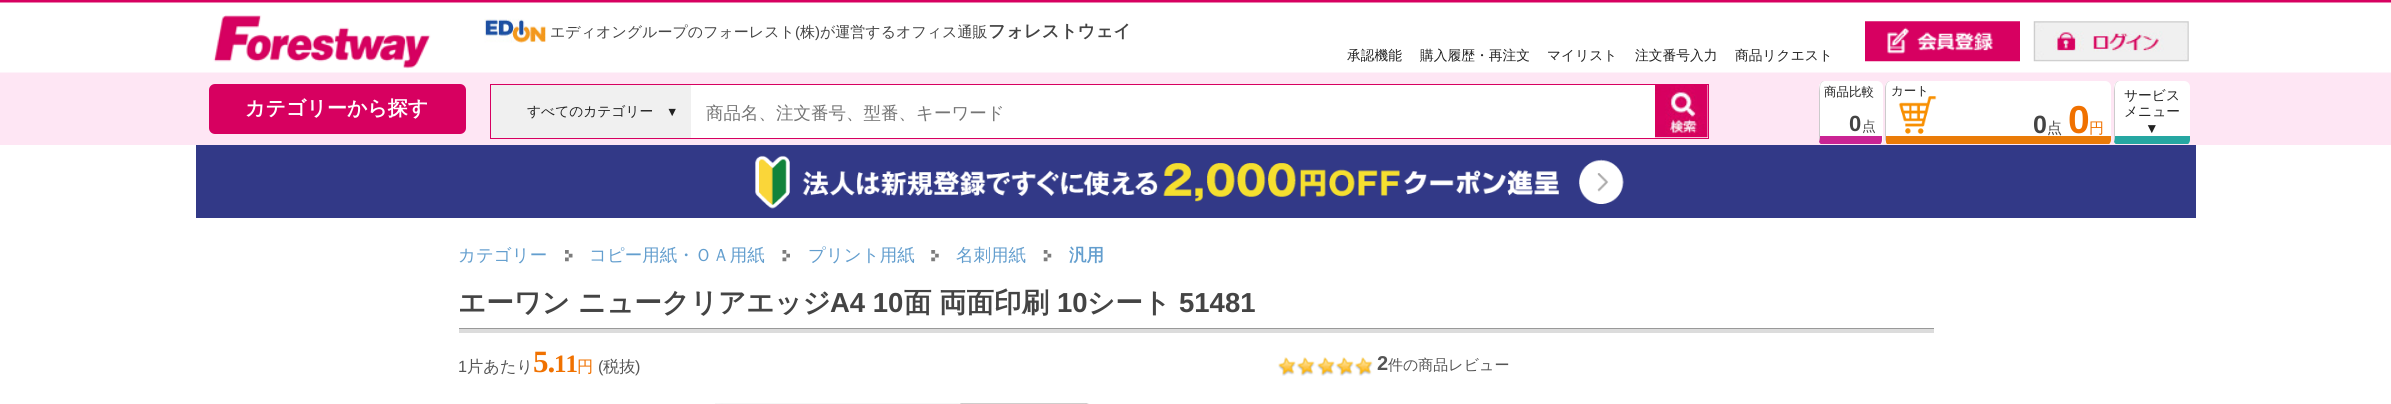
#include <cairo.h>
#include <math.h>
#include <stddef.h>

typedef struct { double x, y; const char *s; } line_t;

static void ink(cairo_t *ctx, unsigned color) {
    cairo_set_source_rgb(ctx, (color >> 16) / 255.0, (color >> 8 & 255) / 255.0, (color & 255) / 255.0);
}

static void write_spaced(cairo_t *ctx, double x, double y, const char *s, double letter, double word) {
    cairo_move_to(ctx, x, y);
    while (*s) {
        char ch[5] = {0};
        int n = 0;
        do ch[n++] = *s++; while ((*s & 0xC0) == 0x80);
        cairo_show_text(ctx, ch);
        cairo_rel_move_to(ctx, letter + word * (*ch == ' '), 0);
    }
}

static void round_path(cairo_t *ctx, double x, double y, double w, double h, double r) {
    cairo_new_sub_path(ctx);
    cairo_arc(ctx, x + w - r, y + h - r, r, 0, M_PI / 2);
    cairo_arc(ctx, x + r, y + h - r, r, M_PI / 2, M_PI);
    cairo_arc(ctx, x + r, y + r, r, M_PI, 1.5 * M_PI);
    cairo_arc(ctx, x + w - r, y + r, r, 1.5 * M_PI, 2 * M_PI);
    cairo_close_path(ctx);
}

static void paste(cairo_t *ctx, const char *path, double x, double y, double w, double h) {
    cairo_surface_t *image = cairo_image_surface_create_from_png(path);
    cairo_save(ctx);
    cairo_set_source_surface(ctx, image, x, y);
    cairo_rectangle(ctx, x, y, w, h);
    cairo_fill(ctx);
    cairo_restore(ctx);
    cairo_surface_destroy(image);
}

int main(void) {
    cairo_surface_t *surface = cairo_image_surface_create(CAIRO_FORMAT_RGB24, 2391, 404);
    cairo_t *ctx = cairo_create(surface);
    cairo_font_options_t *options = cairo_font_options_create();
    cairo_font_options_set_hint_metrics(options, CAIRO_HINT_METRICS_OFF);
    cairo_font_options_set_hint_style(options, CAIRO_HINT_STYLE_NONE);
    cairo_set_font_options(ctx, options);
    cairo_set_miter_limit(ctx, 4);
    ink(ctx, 0xFFFFFF);
    cairo_paint(ctx);
    paste(ctx, "media/1.png", 0, 0, 2391, 145);
    paste(ctx, "media/2.png", 196, 0, 2000, 145);
    paste(ctx, "media/3.png", 213, 15, 218, 54);
    paste(ctx, "media/4.png", 484, 18, 63, 25);
    cairo_select_font_face(ctx, "WenQuanYi Zen Hei Medium", CAIRO_FONT_SLANT_NORMAL, CAIRO_FONT_WEIGHT_NORMAL);
    cairo_set_font_size(ctx, 15);
    ink(ctx, 0x444444);
    cairo_move_to(ctx, 550, 37);
    cairo_show_text(ctx, "エディオングループのフォーレスト");
    cairo_select_font_face(ctx, "Liberation Sans", CAIRO_FONT_SLANT_NORMAL, CAIRO_FONT_WEIGHT_NORMAL);
    cairo_move_to(ctx, 795, 37);
    cairo_show_text(ctx, "(");
    cairo_select_font_face(ctx, "WenQuanYi Zen Hei Medium", CAIRO_FONT_SLANT_NORMAL, CAIRO_FONT_WEIGHT_NORMAL);
    cairo_move_to(ctx, 800, 37);
    cairo_show_text(ctx, "株");
    cairo_select_font_face(ctx, "Liberation Sans", CAIRO_FONT_SLANT_NORMAL, CAIRO_FONT_WEIGHT_NORMAL);
    cairo_move_to(ctx, 815, 37);
    cairo_show_text(ctx, ")");
    cairo_select_font_face(ctx, "WenQuanYi Zen Hei Medium", CAIRO_FONT_SLANT_NORMAL, CAIRO_FONT_WEIGHT_NORMAL);
    cairo_move_to(ctx, 820, 37);
    cairo_show_text(ctx, "が運営するオフィス通販");
    cairo_select_font_face(ctx, "WenQuanYi Zen Hei", CAIRO_FONT_SLANT_NORMAL, CAIRO_FONT_WEIGHT_BOLD);
    cairo_set_font_size(ctx, 17.5);
    cairo_move_to(ctx, 988, 37);
    cairo_show_text(ctx, "フォレストウェイ");
    paste(ctx, "media/5.png", 1865, 21, 155, 41);
    paste(ctx, "media/6.png", 2033, 21, 156, 41);
    cairo_select_font_face(ctx, "WenQuanYi Zen Hei Medium", CAIRO_FONT_SLANT_NORMAL, CAIRO_FONT_WEIGHT_NORMAL);
    cairo_set_font_size(ctx, 13.75);
    ink(ctx, 0x222222);
    {
        static const line_t items[] = {
            {1347, 60, "承認機能"},
            {1420, 60, "購入履歴・再注文"},
            {1547, 60, "マイリスト"},
            {1635, 60, "注文番号入力"},
            {1735, 60, "商品リクエスト"},
        };
        for (size_t i = 0; i < sizeof items / sizeof *items; i++) {
            cairo_move_to(ctx, items[i].x, items[i].y);
            cairo_show_text(ctx, items[i].s);
        }
    }
    ink(ctx, 0xD70060);
    round_path(ctx, 209, 84, 257, 50, 6);
    cairo_fill(ctx);
    cairo_select_font_face(ctx, "WenQuanYi Zen Hei", CAIRO_FONT_SLANT_NORMAL, CAIRO_FONT_WEIGHT_BOLD);
    cairo_set_font_size(ctx, 20);
    ink(ctx, 0xFFFFFF);
    cairo_move_to(ctx, 245, 115);
    cairo_show_text(ctx, "カテゴリーから探す");
    cairo_rectangle(ctx, 691, 85, 1017, 53);
    cairo_fill(ctx);
    cairo_rectangle(ctx, 490.5, 84.5, 1218, 54);
    ink(ctx, 0xD70060);
    cairo_set_line_width(ctx, 1);
    cairo_stroke(ctx);
    ink(ctx, 0xF0F0F0);
    cairo_rectangle(ctx, 491, 85, 200, 53);
    cairo_fill(ctx);
    cairo_select_font_face(ctx, "WenQuanYi Zen Hei Medium", CAIRO_FONT_SLANT_NORMAL, CAIRO_FONT_WEIGHT_NORMAL);
    cairo_set_font_size(ctx, 13.75);
    ink(ctx, 0x222222);
    cairo_move_to(ctx, 527, 116);
    cairo_show_text(ctx, "すべてのカテゴリー");
    cairo_select_font_face(ctx, "Liberation Sans", CAIRO_FONT_SLANT_NORMAL, CAIRO_FONT_WEIGHT_NORMAL);
    cairo_set_font_size(ctx, 12.5);
    cairo_move_to(ctx, 666, 116);
    cairo_show_text(ctx, "▼");
    cairo_select_font_face(ctx, "WenQuanYi Zen Hei Medium", CAIRO_FONT_SLANT_NORMAL, CAIRO_FONT_WEIGHT_NORMAL);
    cairo_set_font_size(ctx, 17.5);
    ink(ctx, 0x757575);
    cairo_move_to(ctx, 706, 119);
    cairo_show_text(ctx, "商品名、注文番号、型番、キーワード");
    paste(ctx, "media/7.png", 1655, 85, 53, 53);
    ink(ctx, 0x323987);
    cairo_rectangle(ctx, 196, 145, 2000, 73);
    cairo_fill(ctx);
    cairo_save(ctx);
    cairo_rectangle(ctx, 196, 81, 2000, 63);
    cairo_clip(ctx);
    ink(ctx, 0xFFFFFF);
    round_path(ctx, 1819, 81, 64, 65, 6);
    cairo_fill(ctx);
    ink(ctx, 0xCA2494);
    cairo_new_path(ctx);
    cairo_move_to(ctx, 1882, 140);
    cairo_line_to(ctx, 1882, 136);
    cairo_line_to(ctx, 1820, 136);
    cairo_line_to(ctx, 1819, 142);
    cairo_curve_to(ctx, 1820, 144, 1823, 146, 1825, 146);
    cairo_line_to(ctx, 1876, 146);
    cairo_curve_to(ctx, 1880, 146, 1882, 143, 1882, 140);
    cairo_close_path(ctx);
    cairo_fill(ctx);
    cairo_restore(ctx);
    ink(ctx, 0xCCCCCC);
    cairo_new_path(ctx);
    cairo_move_to(ctx, 1820, 136);
    cairo_line_to(ctx, 1819, 142);
    cairo_line_to(ctx, 1819, 97);
    cairo_curve_to(ctx, 1819, 95, 1818, 81, 1824, 81);
    cairo_curve_to(ctx, 1821, 82, 1820, 85, 1820, 88);
    cairo_close_path(ctx);
    cairo_fill(ctx);
    cairo_set_font_size(ctx, 12.5);
    ink(ctx, 0x222222);
    cairo_move_to(ctx, 1824, 96);
    cairo_show_text(ctx, "商品比較");
    cairo_select_font_face(ctx, "Liberation Sans", CAIRO_FONT_SLANT_NORMAL, CAIRO_FONT_WEIGHT_BOLD);
    cairo_set_font_size(ctx, 22);
    ink(ctx, 0x444444);
    cairo_move_to(ctx, 1849, 131);
    cairo_show_text(ctx, "0");
    cairo_select_font_face(ctx, "WenQuanYi Zen Hei Medium", CAIRO_FONT_SLANT_NORMAL, CAIRO_FONT_WEIGHT_NORMAL);
    cairo_set_font_size(ctx, 13.75);
    cairo_move_to(ctx, 1862, 131);
    cairo_show_text(ctx, "点");
    cairo_save(ctx);
    cairo_rectangle(ctx, 196, 81, 2000, 63);
    cairo_clip(ctx);
    ink(ctx, 0xFFFFFF);
    round_path(ctx, 1885, 81, 226, 65, 6);
    cairo_fill(ctx);
    ink(ctx, 0xEA7B08);
    cairo_new_path(ctx);
    cairo_move_to(ctx, 2111, 140);
    cairo_line_to(ctx, 2111, 136);
    cairo_line_to(ctx, 1886, 136);
    cairo_line_to(ctx, 1886, 142);
    cairo_curve_to(ctx, 1886, 144, 1889, 146, 1891, 146);
    cairo_line_to(ctx, 2105, 146);
    cairo_curve_to(ctx, 2108, 146, 2111, 143, 2111, 140);
    cairo_close_path(ctx);
    cairo_fill(ctx);
    cairo_restore(ctx);
    ink(ctx, 0xCCCCCC);
    cairo_new_path(ctx);
    cairo_move_to(ctx, 1886, 136);
    cairo_line_to(ctx, 1886, 142);
    cairo_line_to(ctx, 1885, 140);
    cairo_line_to(ctx, 1885, 88);
    cairo_curve_to(ctx, 1885, 85, 1887, 82, 1889, 81);
    cairo_line_to(ctx, 1890, 81);
    cairo_curve_to(ctx, 1887, 82, 1886, 85, 1886, 88);
    cairo_close_path(ctx);
    cairo_fill(ctx);
    cairo_set_font_size(ctx, 12.5);
    ink(ctx, 0x222222);
    cairo_move_to(ctx, 1891, 95);
    cairo_show_text(ctx, "カート");
    paste(ctx, "media/8.png", 1898, 96, 39, 38);
    cairo_select_font_face(ctx, "Liberation Sans", CAIRO_FONT_SLANT_NORMAL, CAIRO_FONT_WEIGHT_BOLD);
    cairo_set_font_size(ctx, 25);
    ink(ctx, 0x444444);
    cairo_move_to(ctx, 2033, 133);
    cairo_show_text(ctx, "0");
    cairo_select_font_face(ctx, "WenQuanYi Zen Hei Medium", CAIRO_FONT_SLANT_NORMAL, CAIRO_FONT_WEIGHT_NORMAL);
    cairo_set_font_size(ctx, 15);
    cairo_move_to(ctx, 2047, 133);
    cairo_show_text(ctx, "点");
    cairo_select_font_face(ctx, "Liberation Sans", CAIRO_FONT_SLANT_NORMAL, CAIRO_FONT_WEIGHT_BOLD);
    cairo_set_font_size(ctx, 39);
    ink(ctx, 0xF07100);
    cairo_move_to(ctx, 2068, 133);
    cairo_show_text(ctx, "0");
    cairo_select_font_face(ctx, "WenQuanYi Zen Hei Medium", CAIRO_FONT_SLANT_NORMAL, CAIRO_FONT_WEIGHT_NORMAL);
    cairo_set_font_size(ctx, 15);
    cairo_move_to(ctx, 2089, 133);
    cairo_show_text(ctx, "円");
    cairo_save(ctx);
    cairo_rectangle(ctx, 196, 81, 2000, 63);
    cairo_clip(ctx);
    ink(ctx, 0xFFFFFF);
    round_path(ctx, 2114, 81, 76, 65, 6);
    cairo_fill(ctx);
    ink(ctx, 0x26A7A2);
    cairo_new_path(ctx);
    cairo_move_to(ctx, 2190, 140);
    cairo_line_to(ctx, 2190, 136);
    cairo_line_to(ctx, 2115, 136);
    cairo_line_to(ctx, 2114, 142);
    cairo_curve_to(ctx, 2115, 144, 2118, 146, 2120, 146);
    cairo_line_to(ctx, 2184, 146);
    cairo_curve_to(ctx, 2187, 146, 2190, 143, 2190, 140);
    cairo_close_path(ctx);
    cairo_fill(ctx);
    cairo_restore(ctx);
    ink(ctx, 0xCCCCCC);
    cairo_new_path(ctx);
    cairo_move_to(ctx, 2115, 136);
    cairo_line_to(ctx, 2114, 142);
    cairo_line_to(ctx, 2114, 97);
    cairo_curve_to(ctx, 2114, 95, 2113, 81, 2119, 81);
    cairo_curve_to(ctx, 2116, 82, 2115, 85, 2115, 88);
    cairo_close_path(ctx);
    cairo_fill(ctx);
    cairo_set_font_size(ctx, 13.75);
    ink(ctx, 0x222222);
    cairo_move_to(ctx, 2124, 100);
    cairo_show_text(ctx, "サービス");
    cairo_move_to(ctx, 2124, 116);
    cairo_show_text(ctx, "メニュー");
    cairo_select_font_face(ctx, "Liberation Sans", CAIRO_FONT_SLANT_NORMAL, CAIRO_FONT_WEIGHT_NORMAL);
    cairo_move_to(ctx, 2145, 133);
    cairo_show_text(ctx, "▼");
    paste(ctx, "media/9.png", 755, 155, 869, 54);
    cairo_select_font_face(ctx, "WenQuanYi Zen Hei Medium", CAIRO_FONT_SLANT_NORMAL, CAIRO_FONT_WEIGHT_NORMAL);
    cairo_set_font_size(ctx, 17.5);
    ink(ctx, 0x639ECE);
    cairo_move_to(ctx, 458, 261);
    cairo_show_text(ctx, "カテゴリー");
    paste(ctx, "media/10.png", 565, 250, 8, 12);
    cairo_move_to(ctx, 589, 261);
    cairo_show_text(ctx, "コピー用紙・ＯＡ用紙");
    paste(ctx, "media/11.png", 782, 250, 8, 12);
    cairo_move_to(ctx, 808, 261);
    cairo_show_text(ctx, "プリント用紙");
    paste(ctx, "media/12.png", 931, 250, 8, 12);
    cairo_move_to(ctx, 956, 261);
    cairo_show_text(ctx, "名刺用紙");
    paste(ctx, "media/13.png", 1043, 250, 9, 12);
    cairo_select_font_face(ctx, "WenQuanYi Zen Hei", CAIRO_FONT_SLANT_NORMAL, CAIRO_FONT_WEIGHT_BOLD);
    cairo_move_to(ctx, 1069, 261);
    cairo_show_text(ctx, "汎用");
    ink(ctx, 0xDCDCDC);
    cairo_rectangle(ctx, 459, 329, 1475, 4);
    cairo_fill(ctx);
    ink(ctx, 0x999999);
    cairo_rectangle(ctx, 459, 328, 1475, 1);
    cairo_fill(ctx);
    cairo_set_font_size(ctx, 27.5);
    ink(ctx, 0x444444);
    cairo_move_to(ctx, 458, 312);
    cairo_show_text(ctx, "エーワン");
    cairo_move_to(ctx, 578, 312);
    cairo_show_text(ctx, "ニュークリアエッジ");
    cairo_select_font_face(ctx, "Liberation Sans", CAIRO_FONT_SLANT_NORMAL, CAIRO_FONT_WEIGHT_BOLD);
    cairo_move_to(ctx, 830, 312);
    cairo_show_text(ctx, "A4 10");
    cairo_select_font_face(ctx, "WenQuanYi Zen Hei", CAIRO_FONT_SLANT_NORMAL, CAIRO_FONT_WEIGHT_BOLD);
    cairo_move_to(ctx, 904, 312);
    cairo_show_text(ctx, "面");
    cairo_move_to(ctx, 939, 312);
    cairo_show_text(ctx, "両面印刷");
    cairo_select_font_face(ctx, "Liberation Sans", CAIRO_FONT_SLANT_NORMAL, CAIRO_FONT_WEIGHT_BOLD);
    cairo_move_to(ctx, 1057, 312);
    cairo_show_text(ctx, "10");
    cairo_select_font_face(ctx, "WenQuanYi Zen Hei", CAIRO_FONT_SLANT_NORMAL, CAIRO_FONT_WEIGHT_BOLD);
    cairo_move_to(ctx, 1087, 312);
    cairo_show_text(ctx, "シート");
    cairo_select_font_face(ctx, "Liberation Sans", CAIRO_FONT_SLANT_NORMAL, CAIRO_FONT_WEIGHT_BOLD);
    cairo_move_to(ctx, 1179, 312);
    cairo_show_text(ctx, "51481");
    cairo_select_font_face(ctx, "Liberation Sans", CAIRO_FONT_SLANT_NORMAL, CAIRO_FONT_WEIGHT_NORMAL);
    cairo_set_font_size(ctx, 16.25);
    ink(ctx, 0x555555);
    cairo_move_to(ctx, 458, 372);
    cairo_show_text(ctx, "1");
    cairo_select_font_face(ctx, "WenQuanYi Zen Hei Medium", CAIRO_FONT_SLANT_NORMAL, CAIRO_FONT_WEIGHT_NORMAL);
    cairo_move_to(ctx, 467, 372);
    cairo_show_text(ctx, "片あたり");
    cairo_select_font_face(ctx, "Liberation Serif", CAIRO_FONT_SLANT_NORMAL, CAIRO_FONT_WEIGHT_BOLD);
    cairo_set_font_size(ctx, 31);
    ink(ctx, 0xF07100);
    write_spaced(ctx, 533, 372, "5.", -1, 0);
    cairo_set_font_size(ctx, 25);
    write_spaced(ctx, 554, 372, "11", -1, 0);
    cairo_select_font_face(ctx, "WenQuanYi Zen Hei Medium", CAIRO_FONT_SLANT_NORMAL, CAIRO_FONT_WEIGHT_NORMAL);
    cairo_set_font_size(ctx, 16.25);
    cairo_move_to(ctx, 577, 372);
    cairo_show_text(ctx, "円");
    cairo_select_font_face(ctx, "Liberation Sans", CAIRO_FONT_SLANT_NORMAL, CAIRO_FONT_WEIGHT_NORMAL);
    ink(ctx, 0x555555);
    cairo_move_to(ctx, 598, 372);
    cairo_show_text(ctx, "(");
    cairo_select_font_face(ctx, "WenQuanYi Zen Hei Medium", CAIRO_FONT_SLANT_NORMAL, CAIRO_FONT_WEIGHT_NORMAL);
    cairo_move_to(ctx, 603, 372);
    cairo_show_text(ctx, "税抜");
    cairo_select_font_face(ctx, "Liberation Sans", CAIRO_FONT_SLANT_NORMAL, CAIRO_FONT_WEIGHT_NORMAL);
    cairo_move_to(ctx, 635, 372);
    cairo_show_text(ctx, ")");
    paste(ctx, "media/14.png", 715, 403, 374, 1);
    paste(ctx, "media/15.png", 1278, 357, 95, 19);
    cairo_select_font_face(ctx, "Liberation Sans", CAIRO_FONT_SLANT_NORMAL, CAIRO_FONT_WEIGHT_BOLD);
    cairo_set_font_size(ctx, 20);
    cairo_move_to(ctx, 1377, 370);
    cairo_show_text(ctx, "2");
    cairo_select_font_face(ctx, "WenQuanYi Zen Hei Medium", CAIRO_FONT_SLANT_NORMAL, CAIRO_FONT_WEIGHT_NORMAL);
    cairo_set_font_size(ctx, 15);
    cairo_move_to(ctx, 1388, 370);
    cairo_show_text(ctx, "件の商品レビュー");
    cairo_surface_write_to_png(surface, "image.png");
    cairo_font_options_destroy(options);
    cairo_destroy(ctx);
    cairo_surface_destroy(surface);
    return 0;
}
